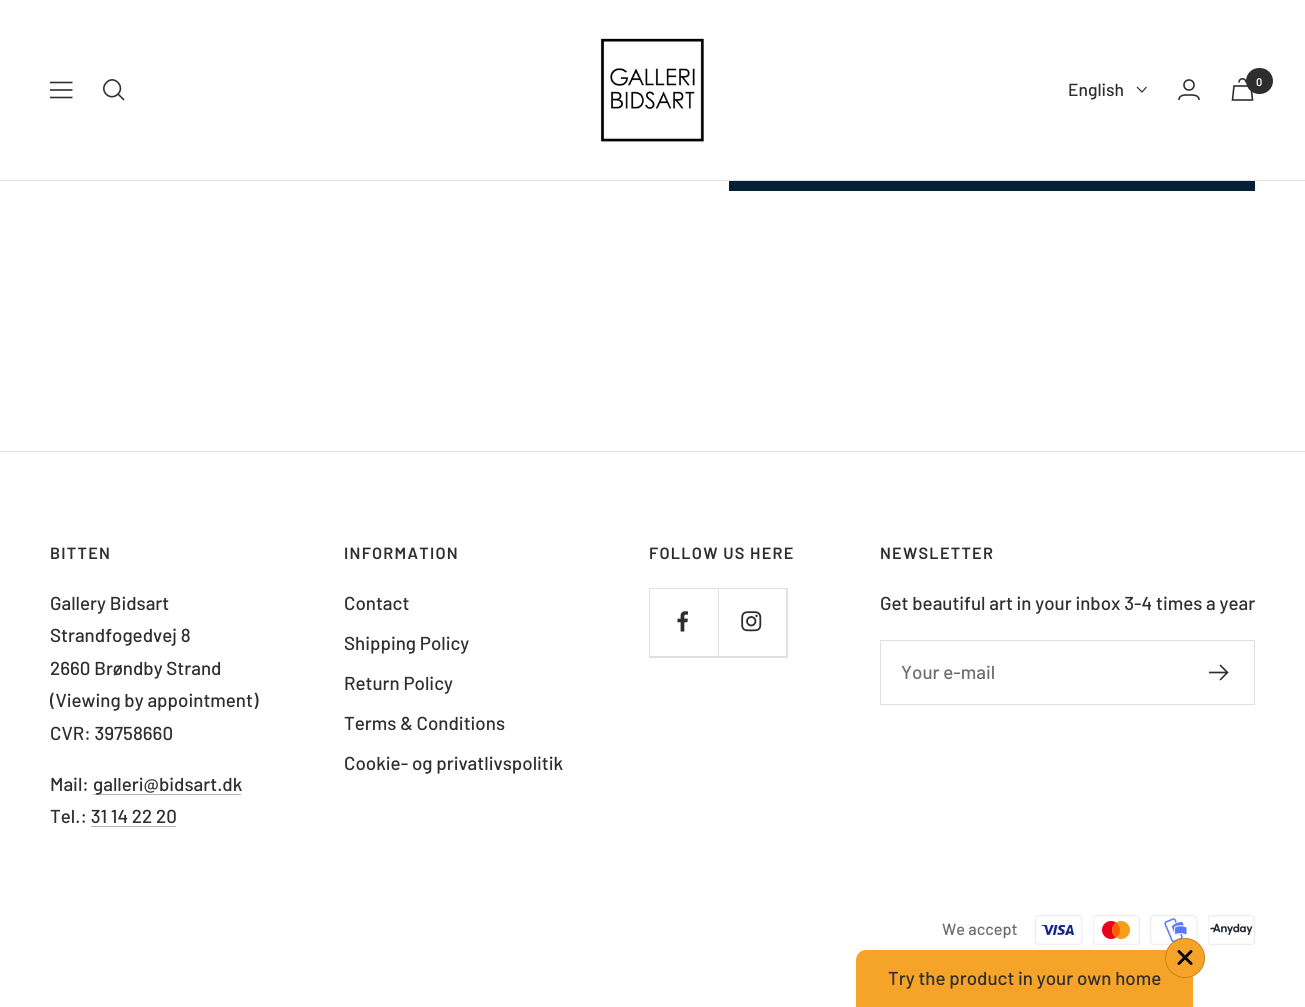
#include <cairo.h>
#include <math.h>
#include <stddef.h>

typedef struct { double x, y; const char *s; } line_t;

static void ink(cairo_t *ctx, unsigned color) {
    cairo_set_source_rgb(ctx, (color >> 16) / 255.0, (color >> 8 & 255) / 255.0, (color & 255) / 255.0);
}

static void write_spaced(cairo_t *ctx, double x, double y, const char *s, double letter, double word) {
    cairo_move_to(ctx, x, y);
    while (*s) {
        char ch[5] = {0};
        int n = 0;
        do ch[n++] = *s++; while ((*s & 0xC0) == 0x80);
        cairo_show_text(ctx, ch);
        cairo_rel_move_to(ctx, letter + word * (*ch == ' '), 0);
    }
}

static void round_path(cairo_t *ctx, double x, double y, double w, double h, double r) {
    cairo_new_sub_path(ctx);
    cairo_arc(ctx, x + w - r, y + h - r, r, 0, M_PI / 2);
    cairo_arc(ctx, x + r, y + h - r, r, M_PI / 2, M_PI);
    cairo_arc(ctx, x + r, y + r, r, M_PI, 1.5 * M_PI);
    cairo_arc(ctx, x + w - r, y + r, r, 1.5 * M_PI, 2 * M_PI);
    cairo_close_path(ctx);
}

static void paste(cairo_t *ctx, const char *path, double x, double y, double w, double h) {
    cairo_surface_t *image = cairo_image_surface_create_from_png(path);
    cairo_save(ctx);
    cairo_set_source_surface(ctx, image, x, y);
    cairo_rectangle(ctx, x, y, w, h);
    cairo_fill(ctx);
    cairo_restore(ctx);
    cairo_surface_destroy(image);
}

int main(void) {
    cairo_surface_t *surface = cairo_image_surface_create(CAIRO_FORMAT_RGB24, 1305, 1007);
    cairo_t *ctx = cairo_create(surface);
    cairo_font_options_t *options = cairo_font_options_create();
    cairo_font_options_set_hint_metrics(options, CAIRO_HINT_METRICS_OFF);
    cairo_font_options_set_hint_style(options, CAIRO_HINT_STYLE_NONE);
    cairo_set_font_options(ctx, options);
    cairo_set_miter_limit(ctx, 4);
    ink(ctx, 0xFFFFFF);
    cairo_paint(ctx);
    ink(ctx, 0xE0E0E0);
    cairo_rectangle(ctx, 0, 180, 1305, 1);
    cairo_fill(ctx);
    cairo_new_path(ctx);
    cairo_move_to(ctx, 50, 82.5);
    cairo_line_to(ctx, 72.5, 82.5);
    cairo_move_to(ctx, 50, 97.5);
    cairo_line_to(ctx, 72.5, 97.5);
    cairo_close_path(ctx);
    cairo_move_to(ctx, 50, 90);
    cairo_line_to(ctx, 72.5, 90);
    cairo_close_path(ctx);
    ink(ctx, 0x2E2E2E);
    cairo_set_line_width(ctx, 1.6);
    cairo_stroke(ctx);
    cairo_new_path(ctx);
    cairo_move_to(ctx, 118, 94);
    cairo_curve_to(ctx, 125.5, 86.5, 114, 74.5, 106.5, 82.5);
    cairo_curve_to(ctx, 98.5, 90.5, 110, 102, 118, 94);
    cairo_close_path(ctx);
    cairo_move_to(ctx, 118, 94);
    cairo_line_to(ctx, 124, 100);
    cairo_stroke(ctx);
    paste(ctx, "media/1.png", 600, 38, 104, 104);
    cairo_select_font_face(ctx, "Barlow Medium", CAIRO_FONT_SLANT_NORMAL, CAIRO_FONT_WEIGHT_NORMAL);
    cairo_set_font_size(ctx, 17.5);
    cairo_move_to(ctx, 1068, 96);
    cairo_show_text(ctx, "English");
    cairo_new_path(ctx);
    cairo_move_to(ctx, 1137, 87);
    cairo_line_to(ctx, 1142, 92);
    cairo_line_to(ctx, 1146.5, 87);
    cairo_set_line_width(ctx, 1.2);
    cairo_stroke(ctx);
    cairo_arc(ctx, 1189, 85, 5, 0, 2 * M_PI);
    cairo_set_line_width(ctx, 1.6);
    cairo_stroke(ctx);
    cairo_new_path(ctx);
    cairo_move_to(ctx, 1179, 100);
    cairo_curve_to(ctx, 1179, 94.5, 1185, 95, 1189, 95);
    cairo_curve_to(ctx, 1192.5, 95, 1199, 94.5, 1199, 100);
    cairo_stroke(ctx);
    cairo_new_path(ctx);
    cairo_move_to(ctx, 1234, 86);
    cairo_line_to(ctx, 1251, 86);
    cairo_line_to(ctx, 1252.5, 100);
    cairo_line_to(ctx, 1232.5, 100);
    cairo_close_path(ctx);
    cairo_move_to(ctx, 1246, 82.5);
    cairo_curve_to(ctx, 1246, 77.5, 1239, 77.5, 1239, 82.5);
    cairo_stroke(ctx);
    round_path(ctx, 1246, 68, 27, 26, 13);
    cairo_fill(ctx);
    cairo_select_font_face(ctx, "Barlow SemiBold", CAIRO_FONT_SLANT_NORMAL, CAIRO_FONT_WEIGHT_NORMAL);
    cairo_set_font_size(ctx, 11);
    ink(ctx, 0xFFFFFF);
    cairo_move_to(ctx, 1256, 86);
    cairo_show_text(ctx, "0");
    ink(ctx, 0x051E38);
    cairo_rectangle(ctx, 729, 181, 526, 10);
    cairo_fill(ctx);
    ink(ctx, 0xE0E0E0);
    cairo_rectangle(ctx, 0, 451, 1305, 1);
    cairo_fill(ctx);
    cairo_set_font_size(ctx, 16.25);
    ink(ctx, 0x2E2E2E);
    write_spaced(ctx, 50, 559, "BITTEN", 1.25, 0);
    cairo_select_font_face(ctx, "Barlow Medium", CAIRO_FONT_SLANT_NORMAL, CAIRO_FONT_WEIGHT_NORMAL);
    cairo_set_font_size(ctx, 18.75);
    {
        static const line_t items[] = {
            {50, 610, "Gallery Bidsart"},
            {50, 642, "Strandfogedvej 8"},
            {50, 675, "2660 Brøndby Strand"},
            {50, 707, "(Viewing by appointment)"},
            {50, 740, "CVR: 39758660"},
            {50, 791, "Mail:"},
        };
        for (size_t i = 0; i < sizeof items / sizeof *items; i++) {
            cairo_move_to(ctx, items[i].x, items[i].y);
            cairo_show_text(ctx, items[i].s);
        }
    }
    ink(ctx, 0xB6B6B6);
    cairo_rectangle(ctx, 93, 794, 148, 1);
    cairo_fill(ctx);
    ink(ctx, 0x2E2E2E);
    cairo_move_to(ctx, 93, 791);
    cairo_show_text(ctx, "galleri@bidsart.dk");
    cairo_move_to(ctx, 50, 823);
    cairo_show_text(ctx, "Tel.: 31 14 22 20");
    ink(ctx, 0xB6B6B6);
    cairo_rectangle(ctx, 91, 826, 85, 1);
    cairo_fill(ctx);
    cairo_select_font_face(ctx, "Barlow SemiBold", CAIRO_FONT_SLANT_NORMAL, CAIRO_FONT_WEIGHT_NORMAL);
    cairo_set_font_size(ctx, 16.25);
    ink(ctx, 0x2E2E2E);
    write_spaced(ctx, 344, 559, "INFORMATION", 1.25, 0);
    cairo_select_font_face(ctx, "Barlow Medium", CAIRO_FONT_SLANT_NORMAL, CAIRO_FONT_WEIGHT_NORMAL);
    cairo_set_font_size(ctx, 18.75);
    {
        static const line_t items[] = {
            {344, 610, "Contact"},
            {344, 650, "Shipping Policy"},
            {344, 690, "Return Policy"},
            {344, 730, "Terms & Conditions"},
            {344, 770, "Cookie- og privatlivspolitik"},
        };
        for (size_t i = 0; i < sizeof items / sizeof *items; i++) {
            cairo_move_to(ctx, items[i].x, items[i].y);
            cairo_show_text(ctx, items[i].s);
        }
    }
    cairo_select_font_face(ctx, "Barlow SemiBold", CAIRO_FONT_SLANT_NORMAL, CAIRO_FONT_WEIGHT_NORMAL);
    cairo_set_font_size(ctx, 16.25);
    write_spaced(ctx, 649, 559, "FOLLOW US HERE", 1.25, 0);
    ink(ctx, 0xE0E0E0);
    cairo_new_path(ctx);
    cairo_move_to(ctx, 650, 656);
    cairo_line_to(ctx, 650, 658);
    cairo_line_to(ctx, 719, 658);
    cairo_line_to(ctx, 719, 589);
    cairo_line_to(ctx, 718, 589);
    cairo_line_to(ctx, 718, 656);
    cairo_close_path(ctx);
    cairo_fill(ctx);
    cairo_new_path(ctx);
    cairo_move_to(ctx, 649, 656);
    cairo_line_to(ctx, 649, 658);
    cairo_line_to(ctx, 718, 658);
    cairo_line_to(ctx, 718, 589);
    cairo_line_to(ctx, 718, 656);
    cairo_close_path(ctx);
    cairo_fill(ctx);
    cairo_rectangle(ctx, 649, 588, 70, 1);
    cairo_fill(ctx);
    cairo_rectangle(ctx, 649, 588, 1, 68);
    cairo_fill(ctx);
    paste(ctx, "media/2.png", 677, 611, 11, 21);
    cairo_new_path(ctx);
    cairo_move_to(ctx, 719, 656);
    cairo_line_to(ctx, 719, 658);
    cairo_line_to(ctx, 788, 658);
    cairo_line_to(ctx, 788, 589);
    cairo_line_to(ctx, 786, 589);
    cairo_line_to(ctx, 786, 656);
    cairo_close_path(ctx);
    cairo_fill(ctx);
    cairo_rectangle(ctx, 718, 588, 70, 1);
    cairo_fill(ctx);
    paste(ctx, "media/3.png", 741, 611, 21, 21);
    ink(ctx, 0x2E2E2E);
    write_spaced(ctx, 880, 559, "NEWSLETTER", 1.25, 0);
    cairo_select_font_face(ctx, "Barlow Medium", CAIRO_FONT_SLANT_NORMAL, CAIRO_FONT_WEIGHT_NORMAL);
    cairo_set_font_size(ctx, 18.75);
    cairo_move_to(ctx, 880, 610);
    cairo_show_text(ctx, "Get beautiful art in your inbox 3-4 times a year");
    cairo_rectangle(ctx, 880.5, 640.5, 374, 64);
    ink(ctx, 0xE0E0E0);
    cairo_set_line_width(ctx, 1);
    cairo_stroke(ctx);
    ink(ctx, 0x6D6D6D);
    cairo_move_to(ctx, 901, 679);
    cairo_show_text(ctx, "Your e-mail");
    cairo_new_path(ctx);
    cairo_move_to(ctx, 1209, 672.5);
    cairo_line_to(ctx, 1227.5, 672.5);
    cairo_move_to(ctx, 1220, 665);
    cairo_line_to(ctx, 1227.5, 672.5);
    cairo_line_to(ctx, 1220, 680);
    ink(ctx, 0x2E2E2E);
    cairo_set_line_width(ctx, 1.6);
    cairo_stroke(ctx);
    cairo_set_font_size(ctx, 16.25);
    ink(ctx, 0x6D6D6D);
    cairo_move_to(ctx, 942, 935);
    cairo_show_text(ctx, "We accept");
    paste(ctx, "media/4.png", 1035, 915, 48, 30);
    paste(ctx, "media/5.png", 1093, 915, 47, 30);
    paste(ctx, "media/6.png", 1150, 915, 48, 30);
    paste(ctx, "media/7.png", 1208, 915, 47, 30);
    ink(ctx, 0xF6A429);
    cairo_new_path(ctx);
    cairo_move_to(ctx, 866, 950);
    cairo_line_to(ctx, 1183, 950);
    cairo_curve_to(ctx, 1188.5, 950, 1193, 954.5, 1193, 960);
    cairo_line_to(ctx, 1193, 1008);
    cairo_line_to(ctx, 856, 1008);
    cairo_line_to(ctx, 856, 960);
    cairo_curve_to(ctx, 856, 954.5, 860.5, 950, 866, 950);
    cairo_close_path(ctx);
    cairo_fill(ctx);
    cairo_arc(ctx, 1185, 958, 20, 0, 2 * M_PI);
    cairo_fill(ctx);
    cairo_arc(ctx, 1185, 958, 19.5, 0, 2 * M_PI);
    cairo_set_source_rgba(ctx, 0, 0, 0, 0.2);
    cairo_set_line_width(ctx, 1);
    cairo_stroke(ctx);
    paste(ctx, "media/8.png", 1177, 950, 16, 15);
    cairo_set_font_size(ctx, 18.75);
    ink(ctx, 0x2E2E2E);
    cairo_move_to(ctx, 888, 985);
    cairo_show_text(ctx, "Try the product in your own home");
    cairo_surface_write_to_png(surface, "image.png");
    cairo_font_options_destroy(options);
    cairo_destroy(ctx);
    cairo_surface_destroy(surface);
    return 0;
}
